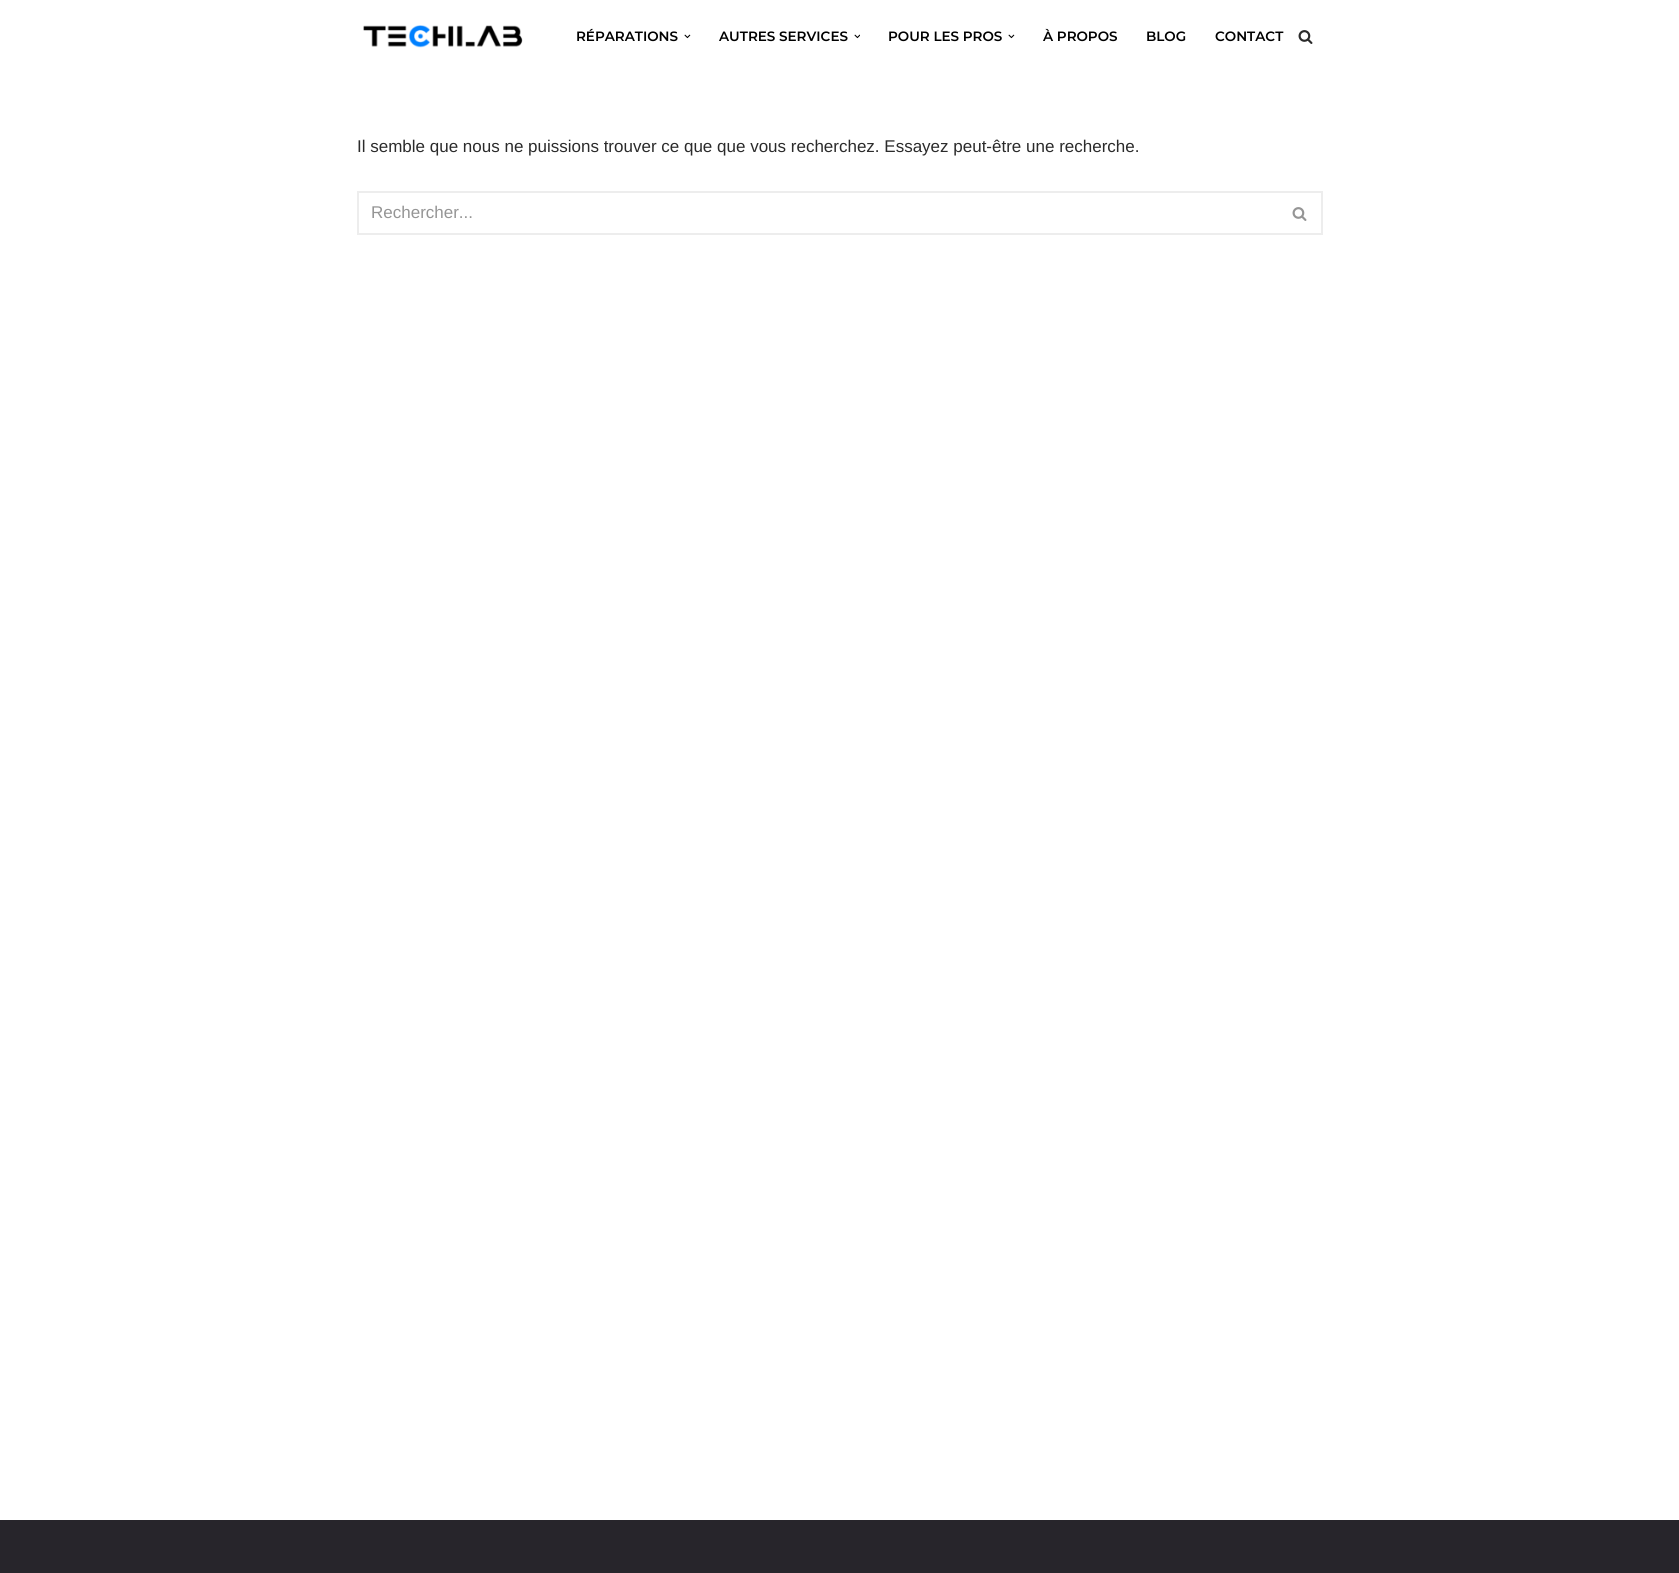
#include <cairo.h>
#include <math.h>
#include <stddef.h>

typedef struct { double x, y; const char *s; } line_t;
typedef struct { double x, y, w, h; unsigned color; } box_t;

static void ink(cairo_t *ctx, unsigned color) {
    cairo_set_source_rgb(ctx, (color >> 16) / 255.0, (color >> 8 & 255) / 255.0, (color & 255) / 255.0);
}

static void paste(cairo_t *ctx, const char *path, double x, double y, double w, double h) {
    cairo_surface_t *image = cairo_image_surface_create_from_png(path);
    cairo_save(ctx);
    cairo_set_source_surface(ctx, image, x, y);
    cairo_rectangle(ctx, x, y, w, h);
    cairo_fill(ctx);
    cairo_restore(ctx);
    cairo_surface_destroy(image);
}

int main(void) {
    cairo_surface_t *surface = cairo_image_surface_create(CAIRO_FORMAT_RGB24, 1679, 1573);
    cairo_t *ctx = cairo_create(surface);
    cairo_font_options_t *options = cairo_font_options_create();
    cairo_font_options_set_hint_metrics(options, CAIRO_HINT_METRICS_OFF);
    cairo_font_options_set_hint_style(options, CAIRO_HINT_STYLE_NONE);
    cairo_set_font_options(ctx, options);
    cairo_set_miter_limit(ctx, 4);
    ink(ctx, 0xFFFFFF);
    cairo_paint(ctx);
    paste(ctx, "media/1.png", 363, 25, 160, 23);
    cairo_select_font_face(ctx, "Montserrat SemiBold", CAIRO_FONT_SLANT_NORMAL, CAIRO_FONT_WEIGHT_NORMAL);
    cairo_set_font_size(ctx, 13.5);
    ink(ctx, 0x000000);
    cairo_move_to(ctx, 576, 41);
    cairo_show_text(ctx, "RÉPARATIONS");
    paste(ctx, "media/2.png", 684, 34, 7, 5);
    cairo_move_to(ctx, 719, 41);
    cairo_show_text(ctx, "AUTRES SERVICES");
    paste(ctx, "media/3.png", 854, 34, 6, 5);
    cairo_move_to(ctx, 888, 41);
    cairo_show_text(ctx, "POUR LES PROS");
    paste(ctx, "media/2.png", 1008, 34, 7, 5);
    {
        static const line_t items[] = {
            {1043, 41, "À PROPOS"},
            {1146, 41, "BLOG"},
            {1215, 41, "CONTACT"},
        };
        for (size_t i = 0; i < sizeof items / sizeof *items; i++) {
            cairo_move_to(ctx, items[i].x, items[i].y);
            cairo_show_text(ctx, items[i].s);
        }
    }
    paste(ctx, "media/4.png", 1298, 30, 15, 14);
    cairo_select_font_face(ctx, "Liberation Sans", CAIRO_FONT_SLANT_NORMAL, CAIRO_FONT_WEIGHT_NORMAL);
    cairo_set_font_size(ctx, 17);
    ink(ctx, 0x2B2B2B);
    cairo_move_to(ctx, 357, 152);
    cairo_show_text(ctx, "Il semble que nous ne puissions trouver ce que que vous recherchez. Essayez peut-être une recherche.");
    {
        static const box_t items[] = {
            {357, 191, 966, 2, 0xEDEDED},
            {357, 233, 921, 2, 0xEDEDED},
            {357, 191, 2, 44, 0xEDEDED},
        };
        for (size_t i = 0; i < sizeof items / sizeof *items; i++) {
            ink(ctx, items[i].color);
            cairo_rectangle(ctx, items[i].x, items[i].y, items[i].w, items[i].h);
            cairo_fill(ctx);
        }
    }
    ink(ctx, 0x959595);
    cairo_move_to(ctx, 371, 218);
    cairo_show_text(ctx, "Rechercher...");
    ink(ctx, 0xEDEDED);
    cairo_rectangle(ctx, 1321, 191, 2, 44);
    cairo_fill(ctx);
    cairo_rectangle(ctx, 1278, 233, 45, 2);
    cairo_fill(ctx);
    paste(ctx, "media/5.png", 1292, 207, 15, 14);
    ink(ctx, 0x27252B);
    cairo_rectangle(ctx, 0, 1520, 1679, 53);
    cairo_fill(ctx);
    cairo_surface_write_to_png(surface, "image.png");
    cairo_font_options_destroy(options);
    cairo_destroy(ctx);
    cairo_surface_destroy(surface);
    return 0;
}
